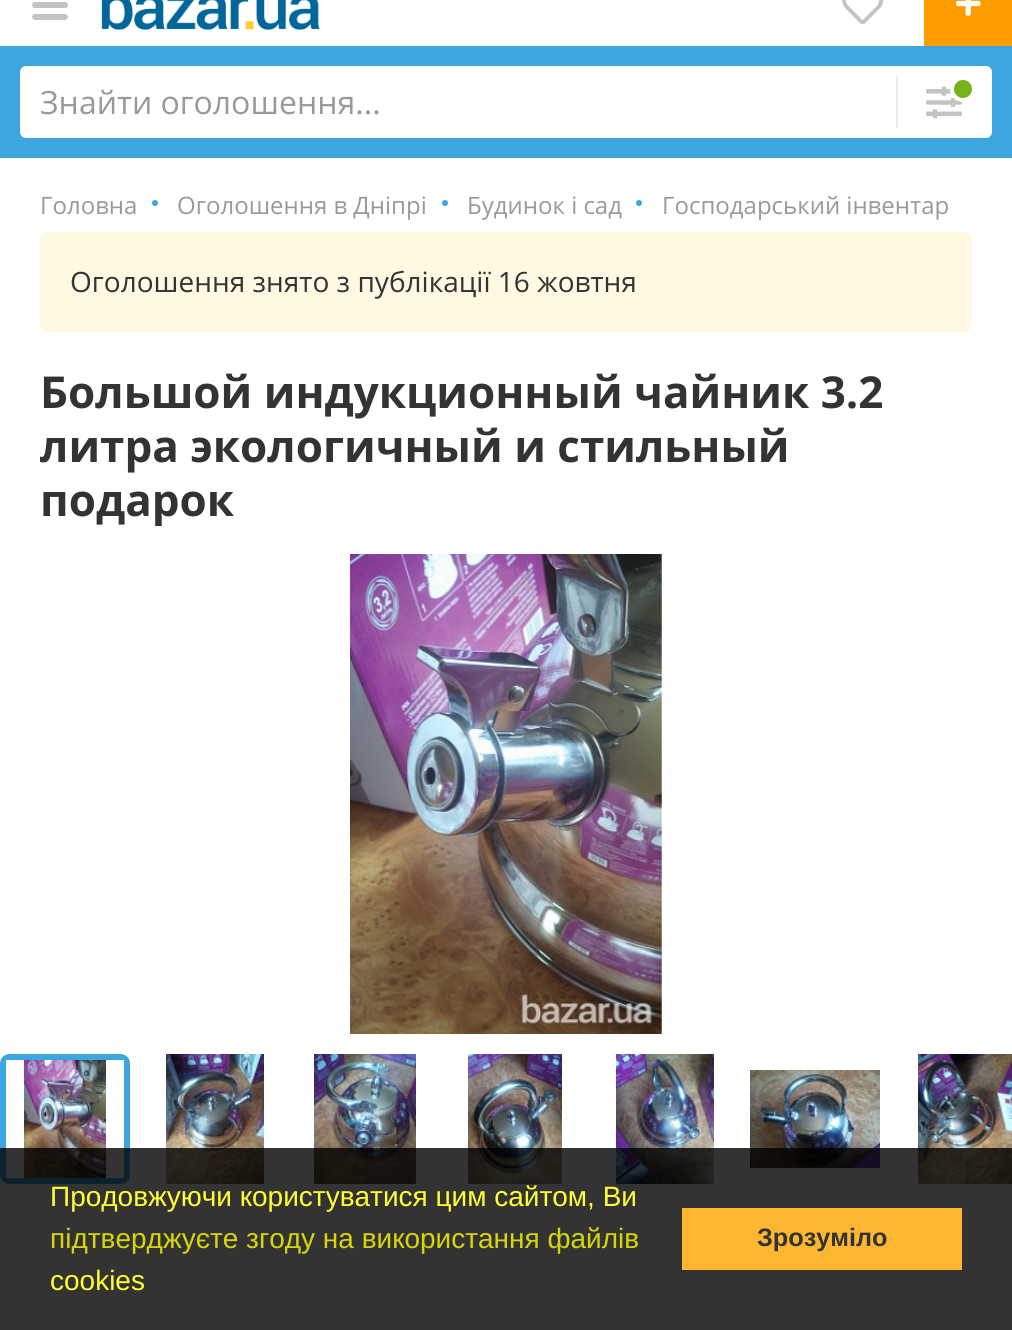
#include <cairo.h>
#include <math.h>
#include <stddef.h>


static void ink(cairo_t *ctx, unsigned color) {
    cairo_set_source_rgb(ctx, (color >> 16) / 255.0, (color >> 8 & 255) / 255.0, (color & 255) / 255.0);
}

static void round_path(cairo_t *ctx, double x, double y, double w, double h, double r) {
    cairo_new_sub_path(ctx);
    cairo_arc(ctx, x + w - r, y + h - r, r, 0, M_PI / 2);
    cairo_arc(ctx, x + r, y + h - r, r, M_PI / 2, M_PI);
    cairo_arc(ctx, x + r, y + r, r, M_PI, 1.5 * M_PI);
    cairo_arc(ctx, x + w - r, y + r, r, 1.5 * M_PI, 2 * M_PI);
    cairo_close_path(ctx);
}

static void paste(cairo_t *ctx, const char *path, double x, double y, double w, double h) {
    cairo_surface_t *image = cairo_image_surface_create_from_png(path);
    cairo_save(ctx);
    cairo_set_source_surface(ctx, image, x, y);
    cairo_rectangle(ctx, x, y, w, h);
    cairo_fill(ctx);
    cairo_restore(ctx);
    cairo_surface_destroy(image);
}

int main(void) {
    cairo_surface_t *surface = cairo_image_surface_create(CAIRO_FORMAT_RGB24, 1012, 1330);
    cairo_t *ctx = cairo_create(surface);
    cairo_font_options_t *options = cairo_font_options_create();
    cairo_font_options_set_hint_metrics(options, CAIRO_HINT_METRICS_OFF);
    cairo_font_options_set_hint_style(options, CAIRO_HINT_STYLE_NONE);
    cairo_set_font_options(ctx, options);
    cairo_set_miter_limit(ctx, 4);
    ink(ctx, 0xFFFFFF);
    cairo_paint(ctx);
    ink(ctx, 0xC3C3C3);
    round_path(ctx, 32, 2, 36, 6, 3);
    cairo_fill(ctx);
    round_path(ctx, 32, 14, 36, 6, 3);
    cairo_fill(ctx);
    paste(ctx, "media/1.png", 101, 0, 219, 30);
    paste(ctx, "media/2.png", 842, 0, 42, 24);
    ink(ctx, 0xFF9D00);
    cairo_rectangle(ctx, 924, 0, 88, 46);
    cairo_fill(ctx);
    paste(ctx, "media/3.png", 956, 0, 25, 16);
    ink(ctx, 0x3CA6DF);
    cairo_rectangle(ctx, 0, 46, 1012, 112);
    cairo_fill(ctx);
    ink(ctx, 0xFFFFFF);
    round_path(ctx, 20, 66, 972, 72, 6);
    cairo_fill(ctx);
    cairo_select_font_face(ctx, "Open Sans", CAIRO_FONT_SLANT_NORMAL, CAIRO_FONT_WEIGHT_NORMAL);
    cairo_set_font_size(ctx, 32);
    ink(ctx, 0x999999);
    cairo_move_to(ctx, 40, 114);
    cairo_show_text(ctx, "Знайти оголошення...");
    ink(ctx, 0xE8EDEF);
    cairo_rectangle(ctx, 896, 76, 2, 52);
    cairo_fill(ctx);
    paste(ctx, "media/4.png", 926, 86, 36, 33);
    ink(ctx, 0x74B31B);
    cairo_arc(ctx, 963, 89, 11, 0, 2 * M_PI);
    cairo_fill_preserve(ctx);
    ink(ctx, 0xFFFFFF);
    cairo_set_line_width(ctx, 4);
    cairo_stroke(ctx);
    cairo_set_font_size(ctx, 24);
    ink(ctx, 0x999999);
    cairo_move_to(ctx, 40, 214);
    cairo_show_text(ctx, "Головна");
    ink(ctx, 0x3CA6DF);
    cairo_new_path(ctx);
    cairo_arc(ctx, 155, 203, 3, 0, 2 * M_PI);
    cairo_fill(ctx);
    ink(ctx, 0x999999);
    cairo_move_to(ctx, 177, 214);
    cairo_show_text(ctx, "Оголошення в Дніпрі");
    ink(ctx, 0x3CA6DF);
    cairo_new_path(ctx);
    cairo_arc(ctx, 445, 203, 3, 0, 2 * M_PI);
    cairo_fill(ctx);
    ink(ctx, 0x999999);
    cairo_move_to(ctx, 467, 214);
    cairo_show_text(ctx, "Будинок і сад");
    ink(ctx, 0x3CA6DF);
    cairo_new_path(ctx);
    cairo_arc(ctx, 639, 203, 3, 0, 2 * M_PI);
    cairo_fill(ctx);
    ink(ctx, 0x999999);
    cairo_move_to(ctx, 662, 214);
    cairo_show_text(ctx, "Господарський інвентар");
    ink(ctx, 0xFFF9E4);
    round_path(ctx, 40, 232, 932, 100, 8);
    cairo_fill(ctx);
    cairo_set_font_size(ctx, 28);
    ink(ctx, 0x333333);
    cairo_move_to(ctx, 70, 292);
    cairo_show_text(ctx, "Оголошення знято з публікації 16 жовтня");
    cairo_select_font_face(ctx, "Open Sans", CAIRO_FONT_SLANT_NORMAL, CAIRO_FONT_WEIGHT_BOLD);
    cairo_set_font_size(ctx, 44);
    cairo_move_to(ctx, 40, 408);
    cairo_show_text(ctx, "Большой индукционный чайник 3.2");
    cairo_move_to(ctx, 40, 462);
    cairo_show_text(ctx, "литра экологичный и стильный");
    cairo_save(ctx);
    cairo_rectangle(ctx, 40, 364, 932, 162);
    cairo_clip(ctx);
    cairo_move_to(ctx, 40, 516);
    cairo_show_text(ctx, "подарок");
    cairo_restore(ctx);
    paste(ctx, "media/5.png", 350, 554, 312, 480);
    paste(ctx, "media/6.png", 24, 1060, 82, 118);
    ink(ctx, 0x3CA6DF);
    cairo_set_fill_rule(ctx, CAIRO_FILL_RULE_EVEN_ODD);
    cairo_new_path(ctx);
    cairo_move_to(ctx, 10, 1054);
    cairo_curve_to(ctx, 4, 1054, 0, 1058, 0, 1064);
    cairo_line_to(ctx, 0, 1174);
    cairo_curve_to(ctx, 0, 1180, 4, 1184, 10, 1184);
    cairo_line_to(ctx, 120, 1184);
    cairo_curve_to(ctx, 126, 1184, 130, 1180, 130, 1174);
    cairo_line_to(ctx, 130, 1064);
    cairo_curve_to(ctx, 130, 1058, 126, 1054, 120, 1054);
    cairo_close_path(ctx);
    cairo_move_to(ctx, 6, 1060);
    cairo_line_to(ctx, 6, 1178);
    cairo_line_to(ctx, 124, 1178);
    cairo_line_to(ctx, 124, 1060);
    cairo_close_path(ctx);
    cairo_fill(ctx);
    paste(ctx, "media/7.png", 166, 1054, 98, 130);
    paste(ctx, "media/8.png", 314, 1054, 102, 130);
    paste(ctx, "media/9.png", 468, 1054, 94, 130);
    paste(ctx, "media/10.png", 616, 1054, 98, 130);
    paste(ctx, "media/11.png", 750, 1070, 130, 98);
    paste(ctx, "media/12.png", 918, 1054, 94, 130);
    cairo_set_source_rgba(ctx, 0, 0, 0, 0.8);
    cairo_rectangle(ctx, 0, 1148, 1012, 182);
    cairo_fill(ctx);
    cairo_select_font_face(ctx, "Liberation Sans", CAIRO_FONT_SLANT_NORMAL, CAIRO_FONT_WEIGHT_NORMAL);
    cairo_set_font_size(ctx, 28);
    ink(ctx, 0xFFFF33);
    cairo_move_to(ctx, 50, 1206);
    cairo_show_text(ctx, "Продовжуючи користуватися цим сайтом, Ви");
    ink(ctx, 0xD6D60A);
    cairo_move_to(ctx, 50, 1248);
    cairo_show_text(ctx, "підтверджуєте згоду на використання файлів");
    ink(ctx, 0xFFFF33);
    cairo_move_to(ctx, 50, 1290);
    cairo_show_text(ctx, "cookies");
    ink(ctx, 0xFFB733);
    cairo_rectangle(ctx, 682, 1208, 280, 62);
    cairo_fill(ctx);
    cairo_select_font_face(ctx, "Liberation Sans", CAIRO_FONT_SLANT_NORMAL, CAIRO_FONT_WEIGHT_BOLD);
    cairo_set_font_size(ctx, 25.25);
    ink(ctx, 0x333333);
    cairo_move_to(ctx, 757, 1246);
    cairo_show_text(ctx, "Зрозуміло");
    cairo_surface_write_to_png(surface, "image.png");
    cairo_font_options_destroy(options);
    cairo_destroy(ctx);
    cairo_surface_destroy(surface);
    return 0;
}
